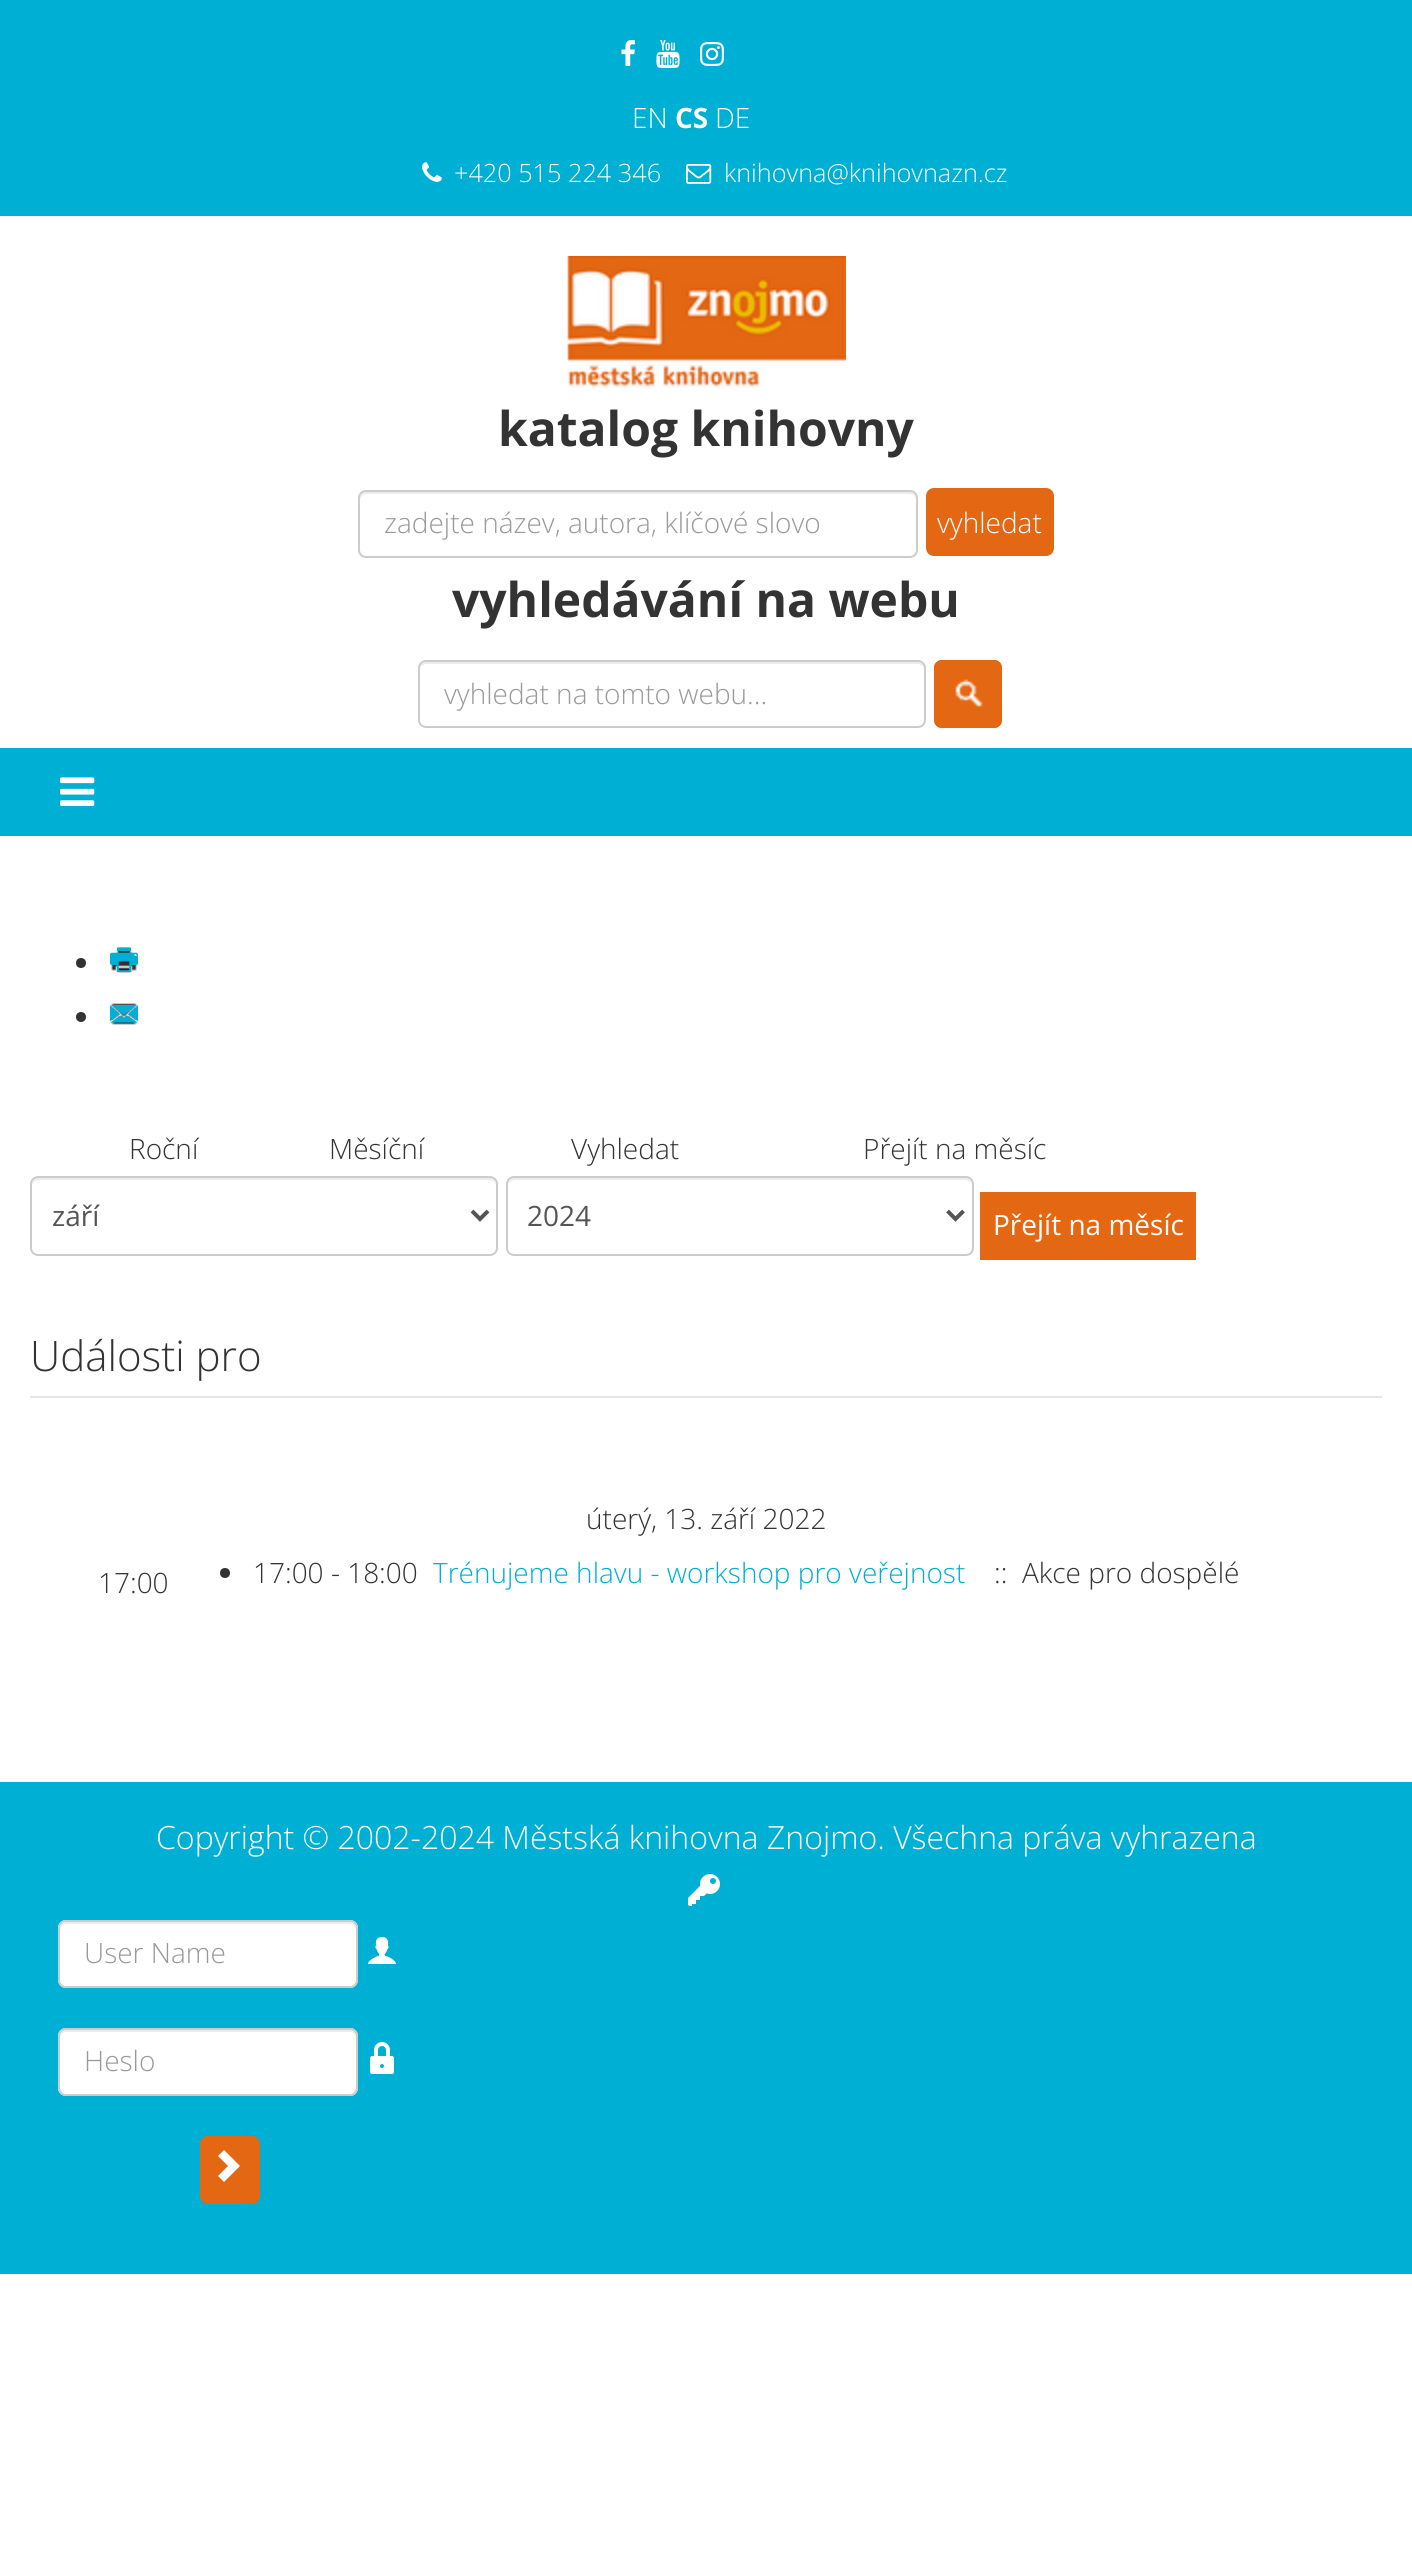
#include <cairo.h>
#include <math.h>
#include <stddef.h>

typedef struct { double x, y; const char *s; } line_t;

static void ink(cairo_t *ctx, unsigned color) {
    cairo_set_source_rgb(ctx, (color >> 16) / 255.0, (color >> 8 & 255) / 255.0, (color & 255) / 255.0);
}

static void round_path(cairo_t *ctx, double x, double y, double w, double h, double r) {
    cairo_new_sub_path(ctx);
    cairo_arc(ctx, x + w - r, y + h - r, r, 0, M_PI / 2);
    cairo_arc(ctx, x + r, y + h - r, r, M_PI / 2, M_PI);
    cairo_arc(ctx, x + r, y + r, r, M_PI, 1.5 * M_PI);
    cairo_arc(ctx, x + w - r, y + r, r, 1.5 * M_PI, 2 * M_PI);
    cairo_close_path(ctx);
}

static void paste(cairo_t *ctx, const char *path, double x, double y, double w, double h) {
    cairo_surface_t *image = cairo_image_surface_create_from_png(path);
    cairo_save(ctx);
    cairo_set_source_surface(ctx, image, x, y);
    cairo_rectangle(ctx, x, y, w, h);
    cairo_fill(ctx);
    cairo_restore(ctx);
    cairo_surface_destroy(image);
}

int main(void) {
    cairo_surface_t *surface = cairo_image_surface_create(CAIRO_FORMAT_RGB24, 1412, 2572);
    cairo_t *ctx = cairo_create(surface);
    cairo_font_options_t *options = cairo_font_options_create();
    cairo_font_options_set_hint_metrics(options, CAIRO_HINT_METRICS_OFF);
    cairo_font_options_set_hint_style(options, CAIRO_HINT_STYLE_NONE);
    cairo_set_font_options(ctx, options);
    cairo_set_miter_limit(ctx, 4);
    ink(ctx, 0xFFFFFF);
    cairo_paint(ctx);
    ink(ctx, 0x00AFD4);
    cairo_rectangle(ctx, 0, 0, 1412, 216);
    cairo_fill(ctx);
    paste(ctx, "media/1.png", 621, 40, 14, 26);
    paste(ctx, "media/2.png", 656, 40, 24, 28);
    paste(ctx, "media/3.png", 700, 42, 24, 24);
    cairo_select_font_face(ctx, "Open Sans Light", CAIRO_FONT_SLANT_NORMAL, CAIRO_FONT_WEIGHT_NORMAL);
    cairo_set_font_size(ctx, 28);
    ink(ctx, 0xFFFFFF);
    cairo_move_to(ctx, 632, 128);
    cairo_show_text(ctx, "EN");
    cairo_select_font_face(ctx, "Open Sans", CAIRO_FONT_SLANT_NORMAL, CAIRO_FONT_WEIGHT_BOLD);
    cairo_move_to(ctx, 675, 128);
    cairo_show_text(ctx, "CS");
    cairo_select_font_face(ctx, "Open Sans Light", CAIRO_FONT_SLANT_NORMAL, CAIRO_FONT_WEIGHT_NORMAL);
    cairo_move_to(ctx, 715, 128);
    cairo_show_text(ctx, "DE");
    paste(ctx, "media/4.png", 422, 162, 20, 20);
    cairo_set_font_size(ctx, 25.25);
    cairo_move_to(ctx, 454, 182);
    cairo_show_text(ctx, "+420 515 224 346");
    paste(ctx, "media/5.png", 686, 164, 26, 20);
    cairo_move_to(ctx, 724, 182);
    cairo_show_text(ctx, "knihovna@knihovnazn.cz");
    paste(ctx, "media/6.png", 567, 256, 279, 131);
    cairo_select_font_face(ctx, "Open Sans", CAIRO_FONT_SLANT_NORMAL, CAIRO_FONT_WEIGHT_BOLD);
    cairo_set_font_size(ctx, 48);
    ink(ctx, 0x333333);
    cairo_move_to(ctx, 498, 446);
    cairo_show_text(ctx, "katalog knihovny");
    ink(ctx, 0xECECEC);
    cairo_new_path(ctx);
    cairo_move_to(ctx, 366, 494);
    cairo_line_to(ctx, 910, 494);
    cairo_curve_to(ctx, 913, 494, 916, 497, 916, 500);
    cairo_line_to(ctx, 916, 498);
    cairo_curve_to(ctx, 916, 495, 913, 492, 910, 492);
    cairo_line_to(ctx, 366, 492);
    cairo_curve_to(ctx, 363, 492, 360, 495, 360, 498);
    cairo_line_to(ctx, 360, 500);
    cairo_curve_to(ctx, 360, 497, 363, 494, 366, 494);
    cairo_close_path(ctx);
    cairo_fill(ctx);
    round_path(ctx, 359, 491, 558, 66, 7);
    ink(ctx, 0xCCCCCC);
    cairo_stroke(ctx);
    cairo_select_font_face(ctx, "Open Sans Light", CAIRO_FONT_SLANT_NORMAL, CAIRO_FONT_WEIGHT_NORMAL);
    cairo_set_font_size(ctx, 28);
    ink(ctx, 0x999999);
    cairo_move_to(ctx, 384, 533);
    cairo_show_text(ctx, "zadejte název, autora, klíčové slovo");
    ink(ctx, 0xE46713);
    round_path(ctx, 926, 488, 128, 68, 8);
    cairo_fill(ctx);
    ink(ctx, 0xFFFFFF);
    cairo_move_to(ctx, 937, 533);
    cairo_show_text(ctx, "vyhledat");
    cairo_select_font_face(ctx, "Open Sans", CAIRO_FONT_SLANT_NORMAL, CAIRO_FONT_WEIGHT_BOLD);
    cairo_set_font_size(ctx, 48);
    ink(ctx, 0x333333);
    cairo_move_to(ctx, 452, 617);
    cairo_show_text(ctx, "vyhledávání na webu");
    ink(ctx, 0xECECEC);
    cairo_new_path(ctx);
    cairo_move_to(ctx, 426, 664);
    cairo_line_to(ctx, 918, 664);
    cairo_curve_to(ctx, 921, 664, 924, 667, 924, 670);
    cairo_curve_to(ctx, 924, 666, 923, 662, 918, 662);
    cairo_line_to(ctx, 426, 662);
    cairo_curve_to(ctx, 421, 662, 420, 666, 420, 670);
    cairo_curve_to(ctx, 420, 667, 423, 664, 426, 664);
    cairo_close_path(ctx);
    cairo_fill(ctx);
    round_path(ctx, 419, 661, 506, 66, 7);
    ink(ctx, 0xCCCCCC);
    cairo_stroke(ctx);
    cairo_select_font_face(ctx, "Open Sans Light", CAIRO_FONT_SLANT_NORMAL, CAIRO_FONT_WEIGHT_NORMAL);
    cairo_set_font_size(ctx, 28);
    ink(ctx, 0x999999);
    cairo_move_to(ctx, 444, 704);
    cairo_show_text(ctx, "vyhledat na tomto webu...");
    ink(ctx, 0xE46713);
    round_path(ctx, 934, 660, 68, 68, 8);
    cairo_fill(ctx);
    paste(ctx, "media/7.png", 934, 660, 68, 68);
    ink(ctx, 0x00AFD4);
    cairo_rectangle(ctx, 0, 748, 1412, 88);
    cairo_fill(ctx);
    paste(ctx, "media/8.png", 60, 777, 35, 29);
    ink(ctx, 0x333333);
    cairo_arc(ctx, 81, 963, 5, 0, 2 * M_PI);
    cairo_fill(ctx);
    paste(ctx, "media/9.png", 111, 947, 26, 26);
    paste(ctx, "media/10.png", 110, 947, 28, 25);
    cairo_arc(ctx, 81, 1017, 5, 0, 2 * M_PI);
    cairo_fill(ctx);
    paste(ctx, "media/11.png", 111, 1003, 26, 22);
    paste(ctx, "media/12.png", 110, 1005, 28, 18);
    {
        static const line_t items[] = {
            {129, 1159, "Roční"},
            {329, 1159, "Měsíční"},
            {571, 1159, "Vyhledat"},
            {863, 1159, "Přejít na měsíc"},
        };
        for (size_t i = 0; i < sizeof items / sizeof *items; i++) {
            cairo_move_to(ctx, items[i].x, items[i].y);
            cairo_show_text(ctx, items[i].s);
        }
    }
    ink(ctx, 0xECECEC);
    cairo_new_path(ctx);
    cairo_move_to(ctx, 38, 1180);
    cairo_line_to(ctx, 490, 1180);
    cairo_curve_to(ctx, 493, 1180, 496, 1183, 496, 1186);
    cairo_curve_to(ctx, 496, 1182, 495, 1178, 490, 1178);
    cairo_line_to(ctx, 38, 1178);
    cairo_curve_to(ctx, 33, 1178, 32, 1182, 32, 1186);
    cairo_curve_to(ctx, 32, 1183, 35, 1180, 38, 1180);
    cairo_close_path(ctx);
    cairo_fill(ctx);
    round_path(ctx, 31, 1177, 466, 78, 7);
    ink(ctx, 0xCCCCCC);
    cairo_stroke(ctx);
    cairo_new_path(ctx);
    cairo_move_to(ctx, 472, 1211);
    cairo_line_to(ctx, 480, 1219);
    cairo_line_to(ctx, 488, 1211);
    ink(ctx, 0x555555);
    cairo_set_line_width(ctx, 4);
    cairo_stroke(ctx);
    cairo_select_font_face(ctx, "Open Sans", CAIRO_FONT_SLANT_NORMAL, CAIRO_FONT_WEIGHT_NORMAL);
    cairo_move_to(ctx, 52, 1226);
    cairo_show_text(ctx, "září");
    ink(ctx, 0xECECEC);
    cairo_new_path(ctx);
    cairo_move_to(ctx, 514, 1180);
    cairo_line_to(ctx, 966, 1180);
    cairo_curve_to(ctx, 969, 1180, 972, 1183, 972, 1186);
    cairo_curve_to(ctx, 972, 1182, 971, 1178, 966, 1178);
    cairo_line_to(ctx, 514, 1178);
    cairo_curve_to(ctx, 509, 1178, 508, 1182, 508, 1186);
    cairo_curve_to(ctx, 508, 1183, 511, 1180, 514, 1180);
    cairo_close_path(ctx);
    cairo_fill(ctx);
    round_path(ctx, 507, 1177, 466, 78, 7);
    ink(ctx, 0xCCCCCC);
    cairo_set_line_width(ctx, 2);
    cairo_stroke(ctx);
    cairo_new_path(ctx);
    cairo_move_to(ctx, 947.5, 1211);
    cairo_line_to(ctx, 955.5, 1219);
    cairo_line_to(ctx, 963.5, 1211);
    ink(ctx, 0x555555);
    cairo_set_line_width(ctx, 4);
    cairo_stroke(ctx);
    cairo_move_to(ctx, 527, 1226);
    cairo_show_text(ctx, "2024");
    ink(ctx, 0xE46713);
    cairo_rectangle(ctx, 980, 1192, 216, 68);
    cairo_fill(ctx);
    ink(ctx, 0xFFFFFF);
    cairo_move_to(ctx, 993, 1235);
    cairo_show_text(ctx, "Přejít na měsíc");
    ink(ctx, 0xE5E5E5);
    cairo_rectangle(ctx, 30, 1396, 1352, 2);
    cairo_fill(ctx);
    cairo_select_font_face(ctx, "Open Sans Light", CAIRO_FONT_SLANT_NORMAL, CAIRO_FONT_WEIGHT_NORMAL);
    cairo_set_font_size(ctx, 42);
    ink(ctx, 0x333333);
    cairo_move_to(ctx, 30, 1371);
    cairo_show_text(ctx, "Události pro");
    cairo_set_font_size(ctx, 28);
    cairo_move_to(ctx, 586, 1529);
    cairo_show_text(ctx, "úterý, 13. září 2022");
    cairo_move_to(ctx, 98, 1593);
    cairo_show_text(ctx, "17:00");
    cairo_new_path(ctx);
    cairo_arc(ctx, 225, 1573, 5, 0, 2 * M_PI);
    cairo_fill(ctx);
    cairo_move_to(ctx, 253, 1583);
    cairo_show_text(ctx, "17:00 - 18:00");
    ink(ctx, 0x00AFD4);
    cairo_move_to(ctx, 433, 1583);
    cairo_show_text(ctx, "Trénujeme hlavu - workshop pro veřejnost");
    ink(ctx, 0x333333);
    cairo_move_to(ctx, 994, 1583);
    cairo_show_text(ctx, "::  Akce pro dospělé");
    ink(ctx, 0x00AFD4);
    cairo_rectangle(ctx, 0, 1782, 1412, 492);
    cairo_fill(ctx);
    cairo_set_font_size(ctx, 32);
    ink(ctx, 0xFFFFFF);
    cairo_move_to(ctx, 156, 1849);
    cairo_show_text(ctx, "Copyright © 2002-2024 Městská knihovna Znojmo. Všechna práva vyhrazena");
    paste(ctx, "media/13.png", 688, 1874, 32, 32);
    round_path(ctx, 58, 1920, 300, 68, 8);
    cairo_fill(ctx);
    ink(ctx, 0xECECEC);
    cairo_new_path(ctx);
    cairo_move_to(ctx, 66, 1924);
    cairo_line_to(ctx, 350, 1924);
    cairo_curve_to(ctx, 353, 1924, 356, 1927, 356, 1930);
    cairo_line_to(ctx, 356, 1928);
    cairo_curve_to(ctx, 356, 1925, 353, 1922, 350, 1922);
    cairo_line_to(ctx, 66, 1922);
    cairo_curve_to(ctx, 63, 1922, 60, 1925, 60, 1928);
    cairo_line_to(ctx, 60, 1930);
    cairo_curve_to(ctx, 60, 1927, 63, 1924, 66, 1924);
    cairo_close_path(ctx);
    cairo_fill(ctx);
    round_path(ctx, 59, 1921, 298, 66, 7);
    ink(ctx, 0xCCCCCC);
    cairo_set_line_width(ctx, 2);
    cairo_stroke(ctx);
    cairo_set_font_size(ctx, 28);
    ink(ctx, 0x999999);
    cairo_move_to(ctx, 84, 1963);
    cairo_show_text(ctx, "User Name");
    paste(ctx, "media/14.png", 368, 1937, 28, 27);
    ink(ctx, 0xFFFFFF);
    round_path(ctx, 58, 2028, 300, 68, 8);
    cairo_fill(ctx);
    ink(ctx, 0xECECEC);
    cairo_new_path(ctx);
    cairo_move_to(ctx, 66, 2032);
    cairo_line_to(ctx, 350, 2032);
    cairo_curve_to(ctx, 353, 2032, 356, 2035, 356, 2038);
    cairo_line_to(ctx, 356, 2036);
    cairo_curve_to(ctx, 356, 2033, 353, 2030, 350, 2030);
    cairo_line_to(ctx, 66, 2030);
    cairo_curve_to(ctx, 63, 2030, 60, 2033, 60, 2036);
    cairo_line_to(ctx, 60, 2038);
    cairo_curve_to(ctx, 60, 2035, 63, 2032, 66, 2032);
    cairo_close_path(ctx);
    cairo_fill(ctx);
    round_path(ctx, 59, 2029, 298, 66, 7);
    ink(ctx, 0xCCCCCC);
    cairo_stroke(ctx);
    ink(ctx, 0x999999);
    cairo_move_to(ctx, 84, 2071);
    cairo_show_text(ctx, "Heslo");
    paste(ctx, "media/15.png", 370, 2042, 24, 32);
    ink(ctx, 0xE46713);
    round_path(ctx, 200, 2136, 60, 68, 8);
    cairo_fill(ctx);
    ink(ctx, 0xFFFFFF);
    cairo_new_path(ctx);
    cairo_move_to(ctx, 224, 2150);
    cairo_line_to(ctx, 218, 2156);
    cairo_line_to(ctx, 228, 2166);
    cairo_line_to(ctx, 218, 2176);
    cairo_line_to(ctx, 224, 2182);
    cairo_line_to(ctx, 240, 2166);
    cairo_close_path(ctx);
    cairo_fill(ctx);
    cairo_surface_write_to_png(surface, "image.png");
    cairo_font_options_destroy(options);
    cairo_destroy(ctx);
    cairo_surface_destroy(surface);
    return 0;
}
